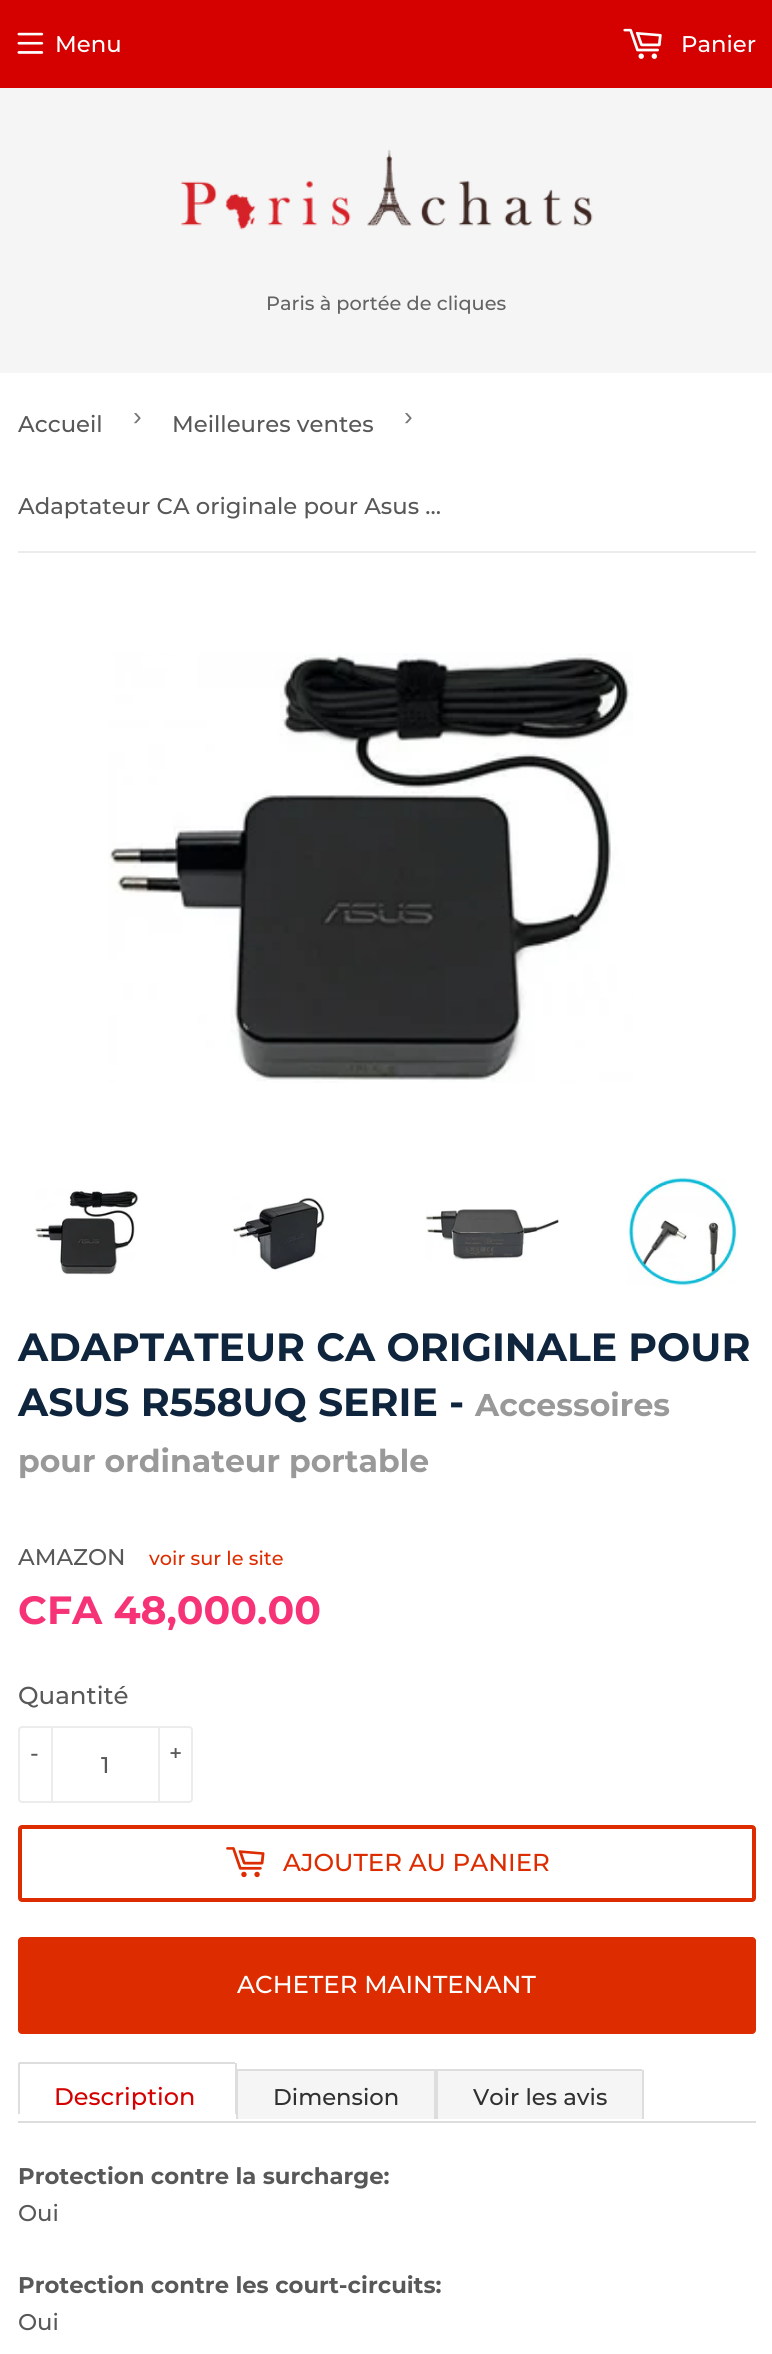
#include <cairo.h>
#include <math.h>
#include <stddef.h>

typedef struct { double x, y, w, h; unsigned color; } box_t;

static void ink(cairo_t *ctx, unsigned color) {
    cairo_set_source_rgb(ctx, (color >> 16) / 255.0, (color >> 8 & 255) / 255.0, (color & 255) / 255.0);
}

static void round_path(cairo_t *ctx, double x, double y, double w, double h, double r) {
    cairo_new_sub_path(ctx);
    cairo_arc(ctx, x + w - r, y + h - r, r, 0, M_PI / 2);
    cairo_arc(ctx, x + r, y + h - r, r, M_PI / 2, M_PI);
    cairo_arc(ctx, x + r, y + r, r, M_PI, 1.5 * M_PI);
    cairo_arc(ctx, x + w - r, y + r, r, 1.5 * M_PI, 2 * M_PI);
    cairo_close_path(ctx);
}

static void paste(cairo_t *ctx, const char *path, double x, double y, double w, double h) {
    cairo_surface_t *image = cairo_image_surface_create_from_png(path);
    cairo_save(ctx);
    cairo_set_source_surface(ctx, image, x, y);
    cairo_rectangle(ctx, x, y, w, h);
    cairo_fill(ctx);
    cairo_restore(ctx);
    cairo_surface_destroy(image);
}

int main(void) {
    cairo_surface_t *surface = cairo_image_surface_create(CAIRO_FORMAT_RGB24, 772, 2354);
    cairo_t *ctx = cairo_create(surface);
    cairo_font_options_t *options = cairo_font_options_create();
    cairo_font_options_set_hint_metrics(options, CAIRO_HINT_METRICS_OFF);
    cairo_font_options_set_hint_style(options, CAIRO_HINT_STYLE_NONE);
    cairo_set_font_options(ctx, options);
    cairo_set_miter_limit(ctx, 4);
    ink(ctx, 0xFFFFFF);
    cairo_paint(ctx);
    ink(ctx, 0xD50000);
    cairo_rectangle(ctx, 0, 0, 772, 88);
    cairo_fill(ctx);
    paste(ctx, "media/1.png", 17, 32, 27, 22);
    cairo_select_font_face(ctx, "Montserrat Medium", CAIRO_FONT_SLANT_NORMAL, CAIRO_FONT_WEIGHT_NORMAL);
    cairo_set_font_size(ctx, 22.75);
    ink(ctx, 0xFFFFFF);
    cairo_move_to(ctx, 55, 52);
    cairo_show_text(ctx, "Menu");
    paste(ctx, "media/2.png", 623, 28, 39, 31);
    cairo_move_to(ctx, 681, 52);
    cairo_show_text(ctx, "Panier");
    ink(ctx, 0xF5F5F5);
    cairo_rectangle(ctx, 0, 88, 772, 285);
    cairo_fill(ctx);
    paste(ctx, "media/3.png", 181, 149, 412, 81);
    cairo_set_font_size(ctx, 19.3);
    ink(ctx, 0x636363);
    cairo_move_to(ctx, 266, 310);
    cairo_show_text(ctx, "Paris à portée de cliques");
    ink(ctx, 0xECECEC);
    cairo_rectangle(ctx, 18, 551, 738, 2);
    cairo_fill(ctx);
    cairo_set_font_size(ctx, 22.75);
    ink(ctx, 0x585858);
    cairo_move_to(ctx, 18, 432);
    cairo_show_text(ctx, "Accueil");
    cairo_select_font_face(ctx, "Liberation Sans", CAIRO_FONT_SLANT_NORMAL, CAIRO_FONT_WEIGHT_NORMAL);
    cairo_set_font_size(ctx, 26);
    ink(ctx, 0x767676);
    cairo_move_to(ctx, 133, 425);
    cairo_show_text(ctx, "›");
    cairo_select_font_face(ctx, "Montserrat Medium", CAIRO_FONT_SLANT_NORMAL, CAIRO_FONT_WEIGHT_NORMAL);
    cairo_set_font_size(ctx, 22.75);
    ink(ctx, 0x585858);
    cairo_move_to(ctx, 172, 432);
    cairo_show_text(ctx, "Meilleures ventes");
    cairo_select_font_face(ctx, "Liberation Sans", CAIRO_FONT_SLANT_NORMAL, CAIRO_FONT_WEIGHT_NORMAL);
    cairo_set_font_size(ctx, 26);
    ink(ctx, 0x767676);
    cairo_move_to(ctx, 404, 425);
    cairo_show_text(ctx, "›");
    cairo_select_font_face(ctx, "Montserrat Medium", CAIRO_FONT_SLANT_NORMAL, CAIRO_FONT_WEIGHT_NORMAL);
    cairo_set_font_size(ctx, 22.75);
    ink(ctx, 0x585858);
    cairo_move_to(ctx, 18, 514);
    cairo_show_text(ctx, "Adaptateur CA originale pour Asus …");
    paste(ctx, "media/4.png", 108, 653, 525, 430);
    paste(ctx, "media/5.png", 35, 1189, 104, 86);
    paste(ctx, "media/6.png", 233, 1197, 92, 75);
    paste(ctx, "media/7.png", 425, 1209, 134, 52);
    paste(ctx, "media/8.png", 626, 1177, 112, 109);
    cairo_select_font_face(ctx, "Montserrat", CAIRO_FONT_SLANT_NORMAL, CAIRO_FONT_WEIGHT_BOLD);
    cairo_set_font_size(ctx, 39.4);
    ink(ctx, 0x0F243D);
    cairo_move_to(ctx, 18, 1361);
    cairo_show_text(ctx, "ADAPTATEUR CA ORIGINALE POUR");
    cairo_move_to(ctx, 18, 1416);
    cairo_show_text(ctx, "ASUS R558UQ SERIE -");
    cairo_set_font_size(ctx, 31.5);
    ink(ctx, 0x999999);
    cairo_move_to(ctx, 475, 1416);
    cairo_show_text(ctx, "Accessoires");
    cairo_move_to(ctx, 18, 1472);
    cairo_show_text(ctx, "pour ordinateur portable");
    cairo_select_font_face(ctx, "Montserrat Medium", CAIRO_FONT_SLANT_NORMAL, CAIRO_FONT_WEIGHT_NORMAL);
    cairo_set_font_size(ctx, 22.75);
    ink(ctx, 0x585858);
    cairo_move_to(ctx, 18, 1565);
    cairo_show_text(ctx, "AMAZON");
    cairo_set_font_size(ctx, 19.3);
    ink(ctx, 0xDD2C00);
    cairo_move_to(ctx, 149, 1565);
    cairo_show_text(ctx, "voir sur le site");
    cairo_select_font_face(ctx, "Montserrat", CAIRO_FONT_SLANT_NORMAL, CAIRO_FONT_WEIGHT_BOLD);
    cairo_set_font_size(ctx, 39.4);
    ink(ctx, 0xF73378);
    cairo_move_to(ctx, 18, 1624);
    cairo_show_text(ctx, "CFA 48,000.00");
    cairo_select_font_face(ctx, "Montserrat Medium", CAIRO_FONT_SLANT_NORMAL, CAIRO_FONT_WEIGHT_NORMAL);
    cairo_set_font_size(ctx, 24.5);
    ink(ctx, 0x585858);
    cairo_move_to(ctx, 18, 1704);
    cairo_show_text(ctx, "Quantité");
    round_path(ctx, 19, 1727, 173, 75, 3);
    ink(ctx, 0xECECEC);
    cairo_stroke(ctx);
    cairo_rectangle(ctx, 51, 1726, 2, 77);
    cairo_fill(ctx);
    cairo_set_font_size(ctx, 22.75);
    ink(ctx, 0x585858);
    cairo_move_to(ctx, 30, 1761);
    cairo_show_text(ctx, "-");
    ink(ctx, 0xECECEC);
    cairo_rectangle(ctx, 158, 1726, 2, 77);
    cairo_fill(ctx);
    ink(ctx, 0x585858);
    cairo_move_to(ctx, 169, 1761);
    cairo_show_text(ctx, "+");
    cairo_move_to(ctx, 101, 1773);
    cairo_show_text(ctx, "1");
    round_path(ctx, 20, 1827, 734, 73, 2);
    ink(ctx, 0xDD2C00);
    cairo_set_line_width(ctx, 4);
    cairo_stroke(ctx);
    paste(ctx, "media/9.png", 226, 1847, 39, 31);
    cairo_set_font_size(ctx, 24.5);
    cairo_move_to(ctx, 283, 1871);
    cairo_show_text(ctx, "AJOUTER AU PANIER");
    round_path(ctx, 18, 1937, 738, 97, 4);
    cairo_fill(ctx);
    ink(ctx, 0xFFFFFF);
    cairo_move_to(ctx, 237, 1993);
    cairo_show_text(ctx, "ACHETER MAINTENANT");
    {
        static const box_t items[] = {
            {18, 2121, 738, 2, 0xDDDDDD},
            {19, 2062, 216, 2, 0xDDDDDD},
            {236, 2069, 200, 2, 0xDDDDDD},
            {236, 2069, 2, 50, 0xDDDDDD},
            {235, 2063, 2, 51, 0xDDDDDD},
            {18, 2063, 2, 51, 0xDDDDDD},
        };
        for (size_t i = 0; i < sizeof items / sizeof *items; i++) {
            ink(ctx, items[i].color);
            cairo_rectangle(ctx, items[i].x, items[i].y, items[i].w, items[i].h);
            cairo_fill(ctx);
        }
    }
    cairo_set_font_size(ctx, 24);
    ink(ctx, 0xD50000);
    cairo_move_to(ctx, 54, 2105);
    cairo_show_text(ctx, "Description");
    ink(ctx, 0xF5F5F5);
    cairo_rectangle(ctx, 238, 2071, 196, 48);
    cairo_fill(ctx);
    ink(ctx, 0xDDDDDD);
    cairo_rectangle(ctx, 434, 2069, 2, 50);
    cairo_fill(ctx);
    cairo_set_font_size(ctx, 22.75);
    ink(ctx, 0x303030);
    cairo_move_to(ctx, 273, 2105);
    cairo_show_text(ctx, "Dimension");
    ink(ctx, 0xF5F5F5);
    cairo_new_path(ctx);
    cairo_move_to(ctx, 436, 2069);
    cairo_line_to(ctx, 640, 2069);
    cairo_curve_to(ctx, 642, 2069, 644, 2071, 644, 2073);
    cairo_line_to(ctx, 644, 2119);
    cairo_line_to(ctx, 436, 2119);
    cairo_close_path(ctx);
    cairo_fill(ctx);
    {
        static const box_t items[] = {
            {436, 2069, 206, 2, 0xDDDDDD},
            {642, 2070, 2, 49, 0xDDDDDD},
            {436, 2069, 2, 50, 0xDDDDDD},
        };
        for (size_t i = 0; i < sizeof items / sizeof *items; i++) {
            ink(ctx, items[i].color);
            cairo_rectangle(ctx, items[i].x, items[i].y, items[i].w, items[i].h);
            cairo_fill(ctx);
        }
    }
    ink(ctx, 0x303030);
    cairo_move_to(ctx, 473, 2105);
    cairo_show_text(ctx, "Voir les avis");
    cairo_select_font_face(ctx, "Montserrat", CAIRO_FONT_SLANT_NORMAL, CAIRO_FONT_WEIGHT_BOLD);
    ink(ctx, 0x585858);
    cairo_move_to(ctx, 18, 2184);
    cairo_show_text(ctx, "Protection contre la surcharge:");
    cairo_select_font_face(ctx, "Montserrat Medium", CAIRO_FONT_SLANT_NORMAL, CAIRO_FONT_WEIGHT_NORMAL);
    cairo_move_to(ctx, 18, 2221);
    cairo_show_text(ctx, "Oui");
    cairo_select_font_face(ctx, "Montserrat", CAIRO_FONT_SLANT_NORMAL, CAIRO_FONT_WEIGHT_BOLD);
    cairo_move_to(ctx, 18, 2293);
    cairo_show_text(ctx, "Protection contre les court-circuits:");
    cairo_select_font_face(ctx, "Montserrat Medium", CAIRO_FONT_SLANT_NORMAL, CAIRO_FONT_WEIGHT_NORMAL);
    cairo_move_to(ctx, 18, 2330);
    cairo_show_text(ctx, "Oui");
    cairo_surface_write_to_png(surface, "image.png");
    cairo_font_options_destroy(options);
    cairo_destroy(ctx);
    cairo_surface_destroy(surface);
    return 0;
}
